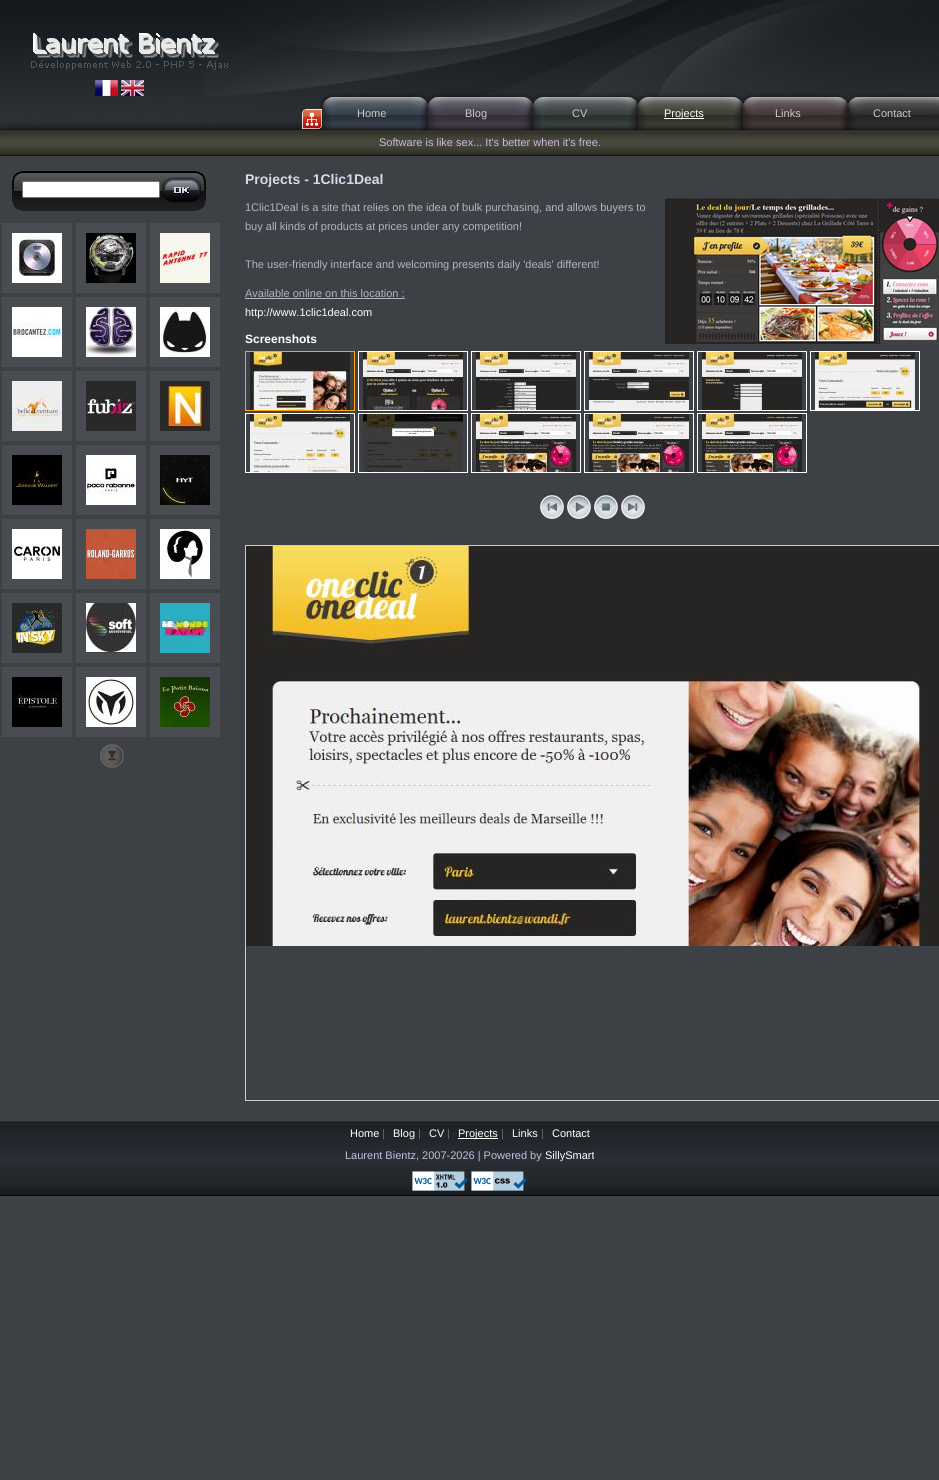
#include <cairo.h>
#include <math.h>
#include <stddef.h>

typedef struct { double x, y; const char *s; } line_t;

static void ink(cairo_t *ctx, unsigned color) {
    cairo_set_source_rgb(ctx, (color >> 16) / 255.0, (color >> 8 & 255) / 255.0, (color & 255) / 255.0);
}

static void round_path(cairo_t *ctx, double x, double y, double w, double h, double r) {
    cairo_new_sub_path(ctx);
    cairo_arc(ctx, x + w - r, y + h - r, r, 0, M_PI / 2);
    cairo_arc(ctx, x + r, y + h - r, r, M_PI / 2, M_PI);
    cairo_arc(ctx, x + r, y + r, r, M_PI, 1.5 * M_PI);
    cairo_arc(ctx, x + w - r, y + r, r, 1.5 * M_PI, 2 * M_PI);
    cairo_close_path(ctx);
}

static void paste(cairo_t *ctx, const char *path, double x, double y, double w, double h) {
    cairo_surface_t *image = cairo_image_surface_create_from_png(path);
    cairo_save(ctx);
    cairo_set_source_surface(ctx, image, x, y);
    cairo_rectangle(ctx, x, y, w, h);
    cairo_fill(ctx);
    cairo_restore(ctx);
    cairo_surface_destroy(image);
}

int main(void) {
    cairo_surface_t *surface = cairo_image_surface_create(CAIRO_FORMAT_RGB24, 939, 1480);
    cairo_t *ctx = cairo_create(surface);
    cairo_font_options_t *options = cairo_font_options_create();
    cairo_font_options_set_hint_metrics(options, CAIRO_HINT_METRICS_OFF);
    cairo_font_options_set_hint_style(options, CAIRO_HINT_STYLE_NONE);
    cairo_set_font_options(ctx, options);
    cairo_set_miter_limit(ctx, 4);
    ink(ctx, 0x3D4044);
    cairo_paint(ctx);
    paste(ctx, "media/1.png", 0, 0, 31, 97);
    paste(ctx, "media/2.png", 31, 0, 908, 97);
    paste(ctx, "media/3.png", 95, 80, 23, 16);
    paste(ctx, "media/4.png", 121, 80, 23, 16);
    paste(ctx, "media/5.png", 0, 97, 6, 33);
    paste(ctx, "media/6.png", 6, 97, 933, 33);
    paste(ctx, "media/7.png", 302, 109, 20, 20);
    cairo_select_font_face(ctx, "Liberation Sans", CAIRO_FONT_SLANT_NORMAL, CAIRO_FONT_WEIGHT_NORMAL);
    cairo_set_font_size(ctx, 11);
    ink(ctx, 0xC9C9C9);
    {
        static const line_t items[] = {
            {357, 117, "Home"},
            {465, 117, "Blog"},
            {572, 117, "CV"},
        };
        for (size_t i = 0; i < sizeof items / sizeof *items; i++) {
            cairo_move_to(ctx, items[i].x, items[i].y);
            cairo_show_text(ctx, items[i].s);
        }
    }
    ink(ctx, 0xFFFFFF);
    cairo_rectangle(ctx, 664, 118, 40, 1);
    cairo_fill(ctx);
    cairo_move_to(ctx, 664, 117);
    cairo_show_text(ctx, "Projects");
    ink(ctx, 0xC9C9C9);
    cairo_move_to(ctx, 775, 117);
    cairo_show_text(ctx, "Links");
    cairo_move_to(ctx, 873, 117);
    cairo_show_text(ctx, "Contact");
    paste(ctx, "media/8.png", 0, 130, 939, 26);
    ink(ctx, 0xC9BBDC);
    cairo_move_to(ctx, 379, 146);
    cairo_show_text(ctx, "Software is like sex... It's better when it's free.");
    paste(ctx, "media/9.png", 12, 171, 194, 40);
    ink(ctx, 0xFFFFFF);
    round_path(ctx, 22.5, 181.5, 137, 16, 1.5);
    cairo_fill_preserve(ctx);
    ink(ctx, 0x767676);
    cairo_set_line_width(ctx, 1);
    cairo_stroke(ctx);
    paste(ctx, "media/10.png", 162, 177, 40, 26);
    cairo_rectangle(ctx, 7, 228, 60, 60);
    ink(ctx, 0x494C51);
    cairo_set_line_width(ctx, 10);
    cairo_stroke(ctx);
    paste(ctx, "media/11.png", 12, 233, 50, 50);
    cairo_rectangle(ctx, 81, 228, 60, 60);
    cairo_stroke(ctx);
    paste(ctx, "media/12.png", 86, 233, 50, 50);
    cairo_rectangle(ctx, 155, 228, 60, 60);
    cairo_stroke(ctx);
    paste(ctx, "media/13.png", 160, 233, 50, 50);
    cairo_rectangle(ctx, 7, 302, 60, 60);
    cairo_stroke(ctx);
    paste(ctx, "media/14.png", 12, 307, 50, 50);
    cairo_rectangle(ctx, 81, 302, 60, 60);
    cairo_stroke(ctx);
    paste(ctx, "media/15.png", 86, 307, 50, 50);
    cairo_rectangle(ctx, 155, 302, 60, 60);
    cairo_stroke(ctx);
    paste(ctx, "media/16.png", 160, 307, 50, 50);
    cairo_rectangle(ctx, 7, 376, 60, 60);
    cairo_stroke(ctx);
    paste(ctx, "media/17.png", 12, 381, 50, 50);
    cairo_rectangle(ctx, 81, 376, 60, 60);
    cairo_stroke(ctx);
    paste(ctx, "media/18.png", 86, 381, 50, 50);
    cairo_rectangle(ctx, 155, 376, 60, 60);
    cairo_stroke(ctx);
    paste(ctx, "media/19.png", 160, 381, 50, 50);
    cairo_rectangle(ctx, 7, 450, 60, 60);
    cairo_stroke(ctx);
    paste(ctx, "media/20.png", 12, 455, 50, 50);
    cairo_rectangle(ctx, 81, 450, 60, 60);
    cairo_stroke(ctx);
    paste(ctx, "media/21.png", 86, 455, 50, 50);
    cairo_rectangle(ctx, 155, 450, 60, 60);
    cairo_stroke(ctx);
    paste(ctx, "media/22.png", 160, 455, 50, 50);
    cairo_rectangle(ctx, 7, 524, 60, 60);
    cairo_stroke(ctx);
    paste(ctx, "media/23.png", 12, 529, 50, 50);
    cairo_rectangle(ctx, 81, 524, 60, 60);
    cairo_stroke(ctx);
    paste(ctx, "media/24.png", 86, 529, 50, 50);
    cairo_rectangle(ctx, 155, 524, 60, 60);
    cairo_stroke(ctx);
    paste(ctx, "media/25.png", 160, 529, 50, 50);
    cairo_rectangle(ctx, 7, 598, 60, 60);
    cairo_stroke(ctx);
    paste(ctx, "media/26.png", 12, 603, 50, 50);
    cairo_rectangle(ctx, 81, 598, 60, 60);
    cairo_stroke(ctx);
    paste(ctx, "media/27.png", 86, 603, 50, 49);
    cairo_rectangle(ctx, 155, 598, 60, 60);
    cairo_stroke(ctx);
    paste(ctx, "media/28.png", 160, 603, 50, 50);
    cairo_rectangle(ctx, 7, 672, 60, 60);
    cairo_stroke(ctx);
    paste(ctx, "media/29.png", 12, 677, 50, 50);
    cairo_rectangle(ctx, 81, 672, 60, 60);
    cairo_stroke(ctx);
    paste(ctx, "media/30.png", 86, 677, 50, 50);
    cairo_rectangle(ctx, 155, 672, 60, 60);
    cairo_stroke(ctx);
    paste(ctx, "media/31.png", 160, 677, 50, 50);
    paste(ctx, "media/32.png", 100, 744, 24, 24);
    cairo_select_font_face(ctx, "Liberation Sans", CAIRO_FONT_SLANT_NORMAL, CAIRO_FONT_WEIGHT_BOLD);
    cairo_set_font_size(ctx, 14);
    ink(ctx, 0xD2DCEA);
    cairo_move_to(ctx, 245, 184);
    cairo_show_text(ctx, "Projects - 1Clic1Deal");
    cairo_select_font_face(ctx, "Liberation Sans", CAIRO_FONT_SLANT_NORMAL, CAIRO_FONT_WEIGHT_NORMAL);
    cairo_set_font_size(ctx, 11);
    ink(ctx, 0xAEB7C2);
    cairo_move_to(ctx, 245, 211);
    cairo_show_text(ctx, "1Clic1Deal is a site that relies on the idea of bulk purchasing, and allows buyers to");
    paste(ctx, "media/33.png", 665, 198, 274, 146);
    {
        static const line_t items[] = {
            {245, 230, "buy all kinds of products at prices under any competition!"},
            {245, 268, "The user-friendly interface and welcoming presents daily 'deals' different!"},
            {245, 297, "Available online on this location :"},
        };
        for (size_t i = 0; i < sizeof items / sizeof *items; i++) {
            cairo_move_to(ctx, items[i].x, items[i].y);
            cairo_show_text(ctx, items[i].s);
        }
    }
    cairo_rectangle(ctx, 245, 298, 160, 1);
    cairo_fill(ctx);
    ink(ctx, 0xFFFFFF);
    cairo_move_to(ctx, 245, 316);
    cairo_show_text(ctx, "http://www.1clic1deal.com");
    cairo_select_font_face(ctx, "Liberation Sans", CAIRO_FONT_SLANT_NORMAL, CAIRO_FONT_WEIGHT_BOLD);
    cairo_set_font_size(ctx, 12);
    cairo_move_to(ctx, 245, 343);
    cairo_show_text(ctx, "Screenshots");
    paste(ctx, "media/34.png", 250, 352, 100, 58);
    paste(ctx, "media/35.png", 363, 352, 100, 58);
    cairo_rectangle(ctx, 358.5, 351.5, 109, 59);
    cairo_set_line_width(ctx, 1);
    cairo_stroke(ctx);
    paste(ctx, "media/36.png", 476, 352, 100, 58);
    cairo_rectangle(ctx, 471.5, 351.5, 109, 59);
    cairo_stroke(ctx);
    paste(ctx, "media/37.png", 589, 352, 100, 58);
    cairo_rectangle(ctx, 584.5, 351.5, 109, 59);
    cairo_stroke(ctx);
    paste(ctx, "media/38.png", 702, 352, 100, 58);
    cairo_rectangle(ctx, 697.5, 351.5, 109, 59);
    cairo_stroke(ctx);
    paste(ctx, "media/39.png", 815, 352, 100, 58);
    cairo_rectangle(ctx, 810.5, 351.5, 109, 59);
    cairo_stroke(ctx);
    paste(ctx, "media/40.png", 250, 414, 100, 58);
    cairo_rectangle(ctx, 245.5, 413.5, 109, 59);
    cairo_stroke(ctx);
    paste(ctx, "media/41.png", 363, 414, 100, 58);
    cairo_rectangle(ctx, 358.5, 413.5, 109, 59);
    cairo_stroke(ctx);
    paste(ctx, "media/42.png", 476, 414, 100, 58);
    cairo_rectangle(ctx, 471.5, 413.5, 109, 59);
    cairo_stroke(ctx);
    paste(ctx, "media/43.png", 589, 414, 100, 58);
    cairo_rectangle(ctx, 584.5, 413.5, 109, 59);
    cairo_stroke(ctx);
    paste(ctx, "media/44.png", 702, 414, 100, 58);
    cairo_rectangle(ctx, 697.5, 413.5, 109, 59);
    cairo_stroke(ctx);
    paste(ctx, "media/45.png", 540, 495, 24, 24);
    paste(ctx, "media/46.png", 567, 495, 24, 24);
    paste(ctx, "media/47.png", 594, 495, 24, 24);
    paste(ctx, "media/48.png", 621, 495, 24, 24);
    cairo_rectangle(ctx, 245.5, 545.5, 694, 555);
    ink(ctx, 0xCCCCCC);
    cairo_stroke(ctx);
    paste(ctx, "media/49.png", 246, 546, 693, 400);
    cairo_rectangle(ctx, 245.5, 351.5, 109, 59);
    ink(ctx, 0xFFA500);
    cairo_stroke(ctx);
    paste(ctx, "media/50.png", 0, 1121, 939, 75);
    cairo_select_font_face(ctx, "Liberation Sans", CAIRO_FONT_SLANT_NORMAL, CAIRO_FONT_WEIGHT_NORMAL);
    cairo_set_font_size(ctx, 11);
    ink(ctx, 0xFFFFFF);
    cairo_move_to(ctx, 350, 1137);
    cairo_show_text(ctx, "Home");
    ink(ctx, 0x5D6972);
    cairo_move_to(ctx, 382, 1137);
    cairo_show_text(ctx, "|");
    ink(ctx, 0xFFFFFF);
    cairo_move_to(ctx, 393, 1137);
    cairo_show_text(ctx, "Blog");
    ink(ctx, 0x5D6972);
    cairo_move_to(ctx, 418, 1137);
    cairo_show_text(ctx, "|");
    ink(ctx, 0xFFFFFF);
    cairo_move_to(ctx, 429, 1137);
    cairo_show_text(ctx, "CV");
    ink(ctx, 0x5D6972);
    cairo_move_to(ctx, 447, 1137);
    cairo_show_text(ctx, "|");
    ink(ctx, 0xFFFFFF);
    cairo_rectangle(ctx, 458, 1138, 40, 1);
    cairo_fill(ctx);
    cairo_move_to(ctx, 458, 1137);
    cairo_show_text(ctx, "Projects");
    ink(ctx, 0x5D6972);
    cairo_move_to(ctx, 501, 1137);
    cairo_show_text(ctx, "|");
    ink(ctx, 0xFFFFFF);
    cairo_move_to(ctx, 512, 1137);
    cairo_show_text(ctx, "Links");
    ink(ctx, 0x5D6972);
    cairo_move_to(ctx, 541, 1137);
    cairo_show_text(ctx, "|");
    ink(ctx, 0xFFFFFF);
    cairo_move_to(ctx, 552, 1137);
    cairo_show_text(ctx, "Contact");
    ink(ctx, 0xC9BBDC);
    cairo_move_to(ctx, 345, 1159);
    cairo_show_text(ctx, "Laurent Bientz, 2007-2026 | Powered by");
    ink(ctx, 0xFFFFFF);
    cairo_move_to(ctx, 545, 1159);
    cairo_show_text(ctx, "SillySmart");
    paste(ctx, "media/51.png", 412, 1171, 56, 20);
    paste(ctx, "media/52.png", 471, 1171, 56, 20);
    cairo_surface_write_to_png(surface, "image.png");
    cairo_font_options_destroy(options);
    cairo_destroy(ctx);
    cairo_surface_destroy(surface);
    return 0;
}
